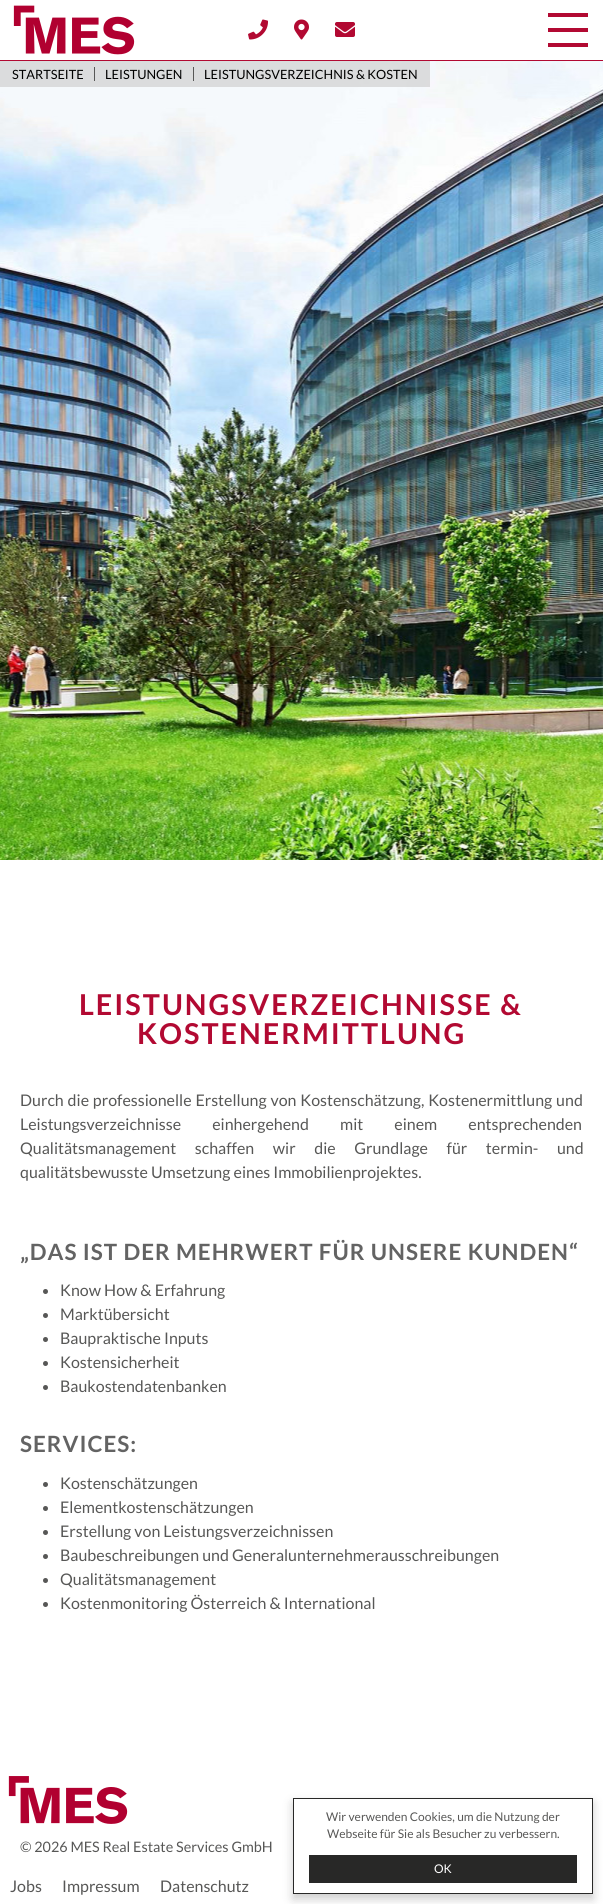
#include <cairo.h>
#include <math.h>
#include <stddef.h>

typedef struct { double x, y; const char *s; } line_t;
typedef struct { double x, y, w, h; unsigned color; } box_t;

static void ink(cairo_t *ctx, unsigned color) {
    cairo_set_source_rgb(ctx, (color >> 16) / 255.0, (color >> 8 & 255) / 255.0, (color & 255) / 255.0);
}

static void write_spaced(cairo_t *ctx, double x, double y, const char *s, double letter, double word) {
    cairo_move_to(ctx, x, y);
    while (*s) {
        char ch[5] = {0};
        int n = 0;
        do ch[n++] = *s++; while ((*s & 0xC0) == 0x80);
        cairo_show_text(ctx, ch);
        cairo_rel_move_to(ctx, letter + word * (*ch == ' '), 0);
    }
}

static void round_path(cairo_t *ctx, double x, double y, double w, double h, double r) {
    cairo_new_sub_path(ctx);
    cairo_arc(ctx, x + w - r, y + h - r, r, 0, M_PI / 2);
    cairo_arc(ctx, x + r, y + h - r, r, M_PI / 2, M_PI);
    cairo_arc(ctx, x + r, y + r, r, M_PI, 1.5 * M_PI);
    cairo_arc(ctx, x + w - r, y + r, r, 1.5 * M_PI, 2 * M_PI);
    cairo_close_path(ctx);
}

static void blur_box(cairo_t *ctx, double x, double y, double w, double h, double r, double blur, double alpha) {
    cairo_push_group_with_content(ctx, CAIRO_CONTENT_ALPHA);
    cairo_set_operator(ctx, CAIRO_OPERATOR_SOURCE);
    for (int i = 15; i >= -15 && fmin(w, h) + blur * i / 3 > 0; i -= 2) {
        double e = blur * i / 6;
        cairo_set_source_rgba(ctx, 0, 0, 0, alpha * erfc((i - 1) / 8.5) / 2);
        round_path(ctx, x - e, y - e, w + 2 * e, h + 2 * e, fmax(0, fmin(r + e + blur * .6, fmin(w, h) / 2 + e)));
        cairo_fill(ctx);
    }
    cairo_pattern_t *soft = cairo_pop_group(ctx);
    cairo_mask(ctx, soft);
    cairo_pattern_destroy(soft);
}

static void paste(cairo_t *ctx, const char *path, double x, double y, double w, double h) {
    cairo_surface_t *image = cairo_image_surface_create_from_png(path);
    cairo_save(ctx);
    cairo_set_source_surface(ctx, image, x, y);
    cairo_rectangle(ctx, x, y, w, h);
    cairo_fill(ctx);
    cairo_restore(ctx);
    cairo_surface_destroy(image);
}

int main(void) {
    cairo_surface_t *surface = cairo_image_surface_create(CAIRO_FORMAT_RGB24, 603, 1904);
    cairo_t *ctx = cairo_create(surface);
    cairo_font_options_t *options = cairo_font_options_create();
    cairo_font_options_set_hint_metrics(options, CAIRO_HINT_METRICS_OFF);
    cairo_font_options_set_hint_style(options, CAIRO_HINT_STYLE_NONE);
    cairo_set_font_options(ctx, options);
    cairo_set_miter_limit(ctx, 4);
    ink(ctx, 0xFFFFFF);
    cairo_paint(ctx);
    ink(ctx, 0xB20932);
    cairo_rectangle(ctx, 0, 60, 603, 1);
    cairo_fill(ctx);
    paste(ctx, "media/1.png", 13, 5, 122, 50);
    paste(ctx, "media/2.png", 248, 19, 20, 21);
    paste(ctx, "media/3.png", 294, 19, 15, 21);
    paste(ctx, "media/4.png", 335, 22, 20, 15);
    {
        static const box_t items[] = {
            {548, 13, 40, 4, 0xB20932},
            {548, 28, 40, 4, 0xB20932},
            {548, 43, 40, 4, 0xB20932},
        };
        for (size_t i = 0; i < sizeof items / sizeof *items; i++) {
            ink(ctx, items[i].color);
            cairo_rectangle(ctx, items[i].x, items[i].y, items[i].w, items[i].h);
            cairo_fill(ctx);
        }
    }
    paste(ctx, "media/5.png", 0, 61, 603, 799);
    cairo_set_source_rgba(ctx, 0.82, 0.82, 0.82, 0.7);
    cairo_rectangle(ctx, 0, 61, 430, 26);
    cairo_fill(ctx);
    ink(ctx, 0x575756);
    cairo_rectangle(ctx, 94, 67, 1, 14);
    cairo_fill(ctx);
    cairo_select_font_face(ctx, "Lato", CAIRO_FONT_SLANT_NORMAL, CAIRO_FONT_WEIGHT_NORMAL);
    cairo_set_font_size(ctx, 12.75);
    ink(ctx, 0x000000);
    cairo_move_to(ctx, 12, 79);
    cairo_show_text(ctx, "STARTSEITE");
    ink(ctx, 0x575756);
    cairo_rectangle(ctx, 193, 67, 1, 14);
    cairo_fill(ctx);
    ink(ctx, 0x000000);
    cairo_move_to(ctx, 105, 79);
    cairo_show_text(ctx, "LEISTUNGEN");
    cairo_move_to(ctx, 204, 79);
    cairo_show_text(ctx, "LEISTUNGSVERZEICHNIS & KOSTEN");
    cairo_select_font_face(ctx, "Lato", CAIRO_FONT_SLANT_NORMAL, CAIRO_FONT_WEIGHT_BOLD);
    cairo_set_font_size(ctx, 28.75);
    ink(ctx, 0xB20932);
    write_spaced(ctx, 79, 1015, "LEISTUNGSVERZEICHNISSE &", 2, 0);
    write_spaced(ctx, 137, 1044, "KOSTENERMITTLUNG", 2, 0);
    cairo_select_font_face(ctx, "Lato", CAIRO_FONT_SLANT_NORMAL, CAIRO_FONT_WEIGHT_NORMAL);
    cairo_set_font_size(ctx, 16);
    ink(ctx, 0x575756);
    write_spaced(ctx, 20, 1106, "Durch die professionelle Erstellung von Kostenschätzung, Kostenermittlung und", 0, 0.75);
    write_spaced(ctx, 20, 1130, "Leistungsverzeichnisse einhergehend mit einem entsprechenden", 0, 28);
    write_spaced(ctx, 20, 1154, "Qualitätsmanagement schaffen wir die Grundlage für termin- und", 0, 15.5);
    cairo_move_to(ctx, 20, 1178);
    cairo_show_text(ctx, "qualitätsbewusste Umsetzung eines Immobilienprojektes.");
    cairo_select_font_face(ctx, "Lato", CAIRO_FONT_SLANT_NORMAL, CAIRO_FONT_WEIGHT_BOLD);
    cairo_set_font_size(ctx, 22.4);
    ink(ctx, 0x636363);
    write_spaced(ctx, 20, 1260, "„DAS IST DER MEHRWERT FÜR UNSERE KUNDEN“", 1, 0);
    ink(ctx, 0x575756);
    cairo_new_path(ctx);
    cairo_arc(ctx, 45.5, 1291.5, 2.5, 0, 2 * M_PI);
    cairo_fill(ctx);
    cairo_select_font_face(ctx, "Lato", CAIRO_FONT_SLANT_NORMAL, CAIRO_FONT_WEIGHT_NORMAL);
    cairo_set_font_size(ctx, 16);
    cairo_move_to(ctx, 60, 1296);
    cairo_show_text(ctx, "Know How & Erfahrung");
    cairo_new_path(ctx);
    cairo_arc(ctx, 45.5, 1315.5, 2.5, 0, 2 * M_PI);
    cairo_fill(ctx);
    cairo_move_to(ctx, 60, 1320);
    cairo_show_text(ctx, "Marktübersicht");
    cairo_new_path(ctx);
    cairo_arc(ctx, 45.5, 1339.5, 2.5, 0, 2 * M_PI);
    cairo_fill(ctx);
    cairo_move_to(ctx, 60, 1344);
    cairo_show_text(ctx, "Baupraktische Inputs");
    cairo_new_path(ctx);
    cairo_arc(ctx, 45.5, 1363.5, 2.5, 0, 2 * M_PI);
    cairo_fill(ctx);
    cairo_move_to(ctx, 60, 1368);
    cairo_show_text(ctx, "Kostensicherheit");
    cairo_new_path(ctx);
    cairo_arc(ctx, 45.5, 1387.5, 2.5, 0, 2 * M_PI);
    cairo_fill(ctx);
    cairo_move_to(ctx, 60, 1392);
    cairo_show_text(ctx, "Baukostendatenbanken");
    cairo_select_font_face(ctx, "Lato", CAIRO_FONT_SLANT_NORMAL, CAIRO_FONT_WEIGHT_BOLD);
    cairo_set_font_size(ctx, 22.4);
    ink(ctx, 0x636363);
    write_spaced(ctx, 20, 1452, "SERVICES:", 1, 0);
    ink(ctx, 0x575756);
    cairo_new_path(ctx);
    cairo_arc(ctx, 45.5, 1484.5, 2.5, 0, 2 * M_PI);
    cairo_fill(ctx);
    cairo_select_font_face(ctx, "Lato", CAIRO_FONT_SLANT_NORMAL, CAIRO_FONT_WEIGHT_NORMAL);
    cairo_set_font_size(ctx, 16);
    cairo_move_to(ctx, 60, 1489);
    cairo_show_text(ctx, "Kostenschätzungen");
    cairo_new_path(ctx);
    cairo_arc(ctx, 45.5, 1508.5, 2.5, 0, 2 * M_PI);
    cairo_fill(ctx);
    cairo_move_to(ctx, 60, 1513);
    cairo_show_text(ctx, "Elementkostenschätzungen");
    cairo_new_path(ctx);
    cairo_arc(ctx, 45.5, 1532.5, 2.5, 0, 2 * M_PI);
    cairo_fill(ctx);
    cairo_move_to(ctx, 60, 1537);
    cairo_show_text(ctx, "Erstellung von Leistungsverzeichnissen");
    cairo_new_path(ctx);
    cairo_arc(ctx, 45.5, 1556.5, 2.5, 0, 2 * M_PI);
    cairo_fill(ctx);
    cairo_move_to(ctx, 60, 1561);
    cairo_show_text(ctx, "Baubeschreibungen und Generalunternehmerausschreibungen");
    cairo_new_path(ctx);
    cairo_arc(ctx, 45.5, 1580.5, 2.5, 0, 2 * M_PI);
    cairo_fill(ctx);
    cairo_move_to(ctx, 60, 1585);
    cairo_show_text(ctx, "Qualitätsmanagement");
    cairo_new_path(ctx);
    cairo_arc(ctx, 45.5, 1604.5, 2.5, 0, 2 * M_PI);
    cairo_fill(ctx);
    cairo_move_to(ctx, 60, 1609);
    cairo_show_text(ctx, "Kostenmonitoring Österreich & International");
    paste(ctx, "media/6.png", 8, 1776, 120, 48);
    cairo_set_font_size(ctx, 14.4);
    cairo_move_to(ctx, 20, 1852);
    cairo_show_text(ctx, "© 2026 MES Real Estate Services GmbH");
    cairo_set_font_size(ctx, 16);
    {
        static const line_t items[] = {
            {10, 1892, "Jobs"},
            {62, 1892, "Impressum"},
            {160, 1892, "Datenschutz"},
        };
        for (size_t i = 0; i < sizeof items / sizeof *items; i++) {
            cairo_move_to(ctx, items[i].x, items[i].y);
            cairo_show_text(ctx, items[i].s);
        }
    }
    cairo_save(ctx);
    cairo_set_fill_rule(ctx, CAIRO_FILL_RULE_EVEN_ODD);
    cairo_new_path(ctx);
    cairo_move_to(ctx, 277, 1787);
    cairo_line_to(ctx, 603, 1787);
    cairo_line_to(ctx, 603, 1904);
    cairo_line_to(ctx, 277, 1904);
    cairo_close_path(ctx);
    cairo_move_to(ctx, 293, 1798);
    cairo_line_to(ctx, 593, 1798);
    cairo_line_to(ctx, 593, 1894);
    cairo_line_to(ctx, 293, 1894);
    cairo_close_path(ctx);
    cairo_clip(ctx);
    ink(ctx, 0x000000);
    blur_box(ctx, 293, 1803, 300, 96, 0, 5, 0.2);
    cairo_restore(ctx);
    cairo_rectangle(ctx, 293.5, 1798.5, 299, 95);
    ink(ctx, 0x282827);
    cairo_set_line_width(ctx, 1);
    cairo_stroke(ctx);
    cairo_set_font_size(ctx, 12);
    ink(ctx, 0x575756);
    cairo_move_to(ctx, 326, 1821);
    cairo_show_text(ctx, "Wir verwenden Cookies, um die Nutzung der");
    cairo_move_to(ctx, 327, 1838);
    cairo_show_text(ctx, "Webseite für Sie als Besucher zu verbessern.");
    ink(ctx, 0x282827);
    cairo_rectangle(ctx, 309, 1855, 268, 28);
    cairo_fill(ctx);
    ink(ctx, 0xFFFFFF);
    cairo_move_to(ctx, 434, 1873);
    cairo_show_text(ctx, "OK");
    cairo_surface_write_to_png(surface, "image.png");
    cairo_font_options_destroy(options);
    cairo_destroy(ctx);
    cairo_surface_destroy(surface);
    return 0;
}
